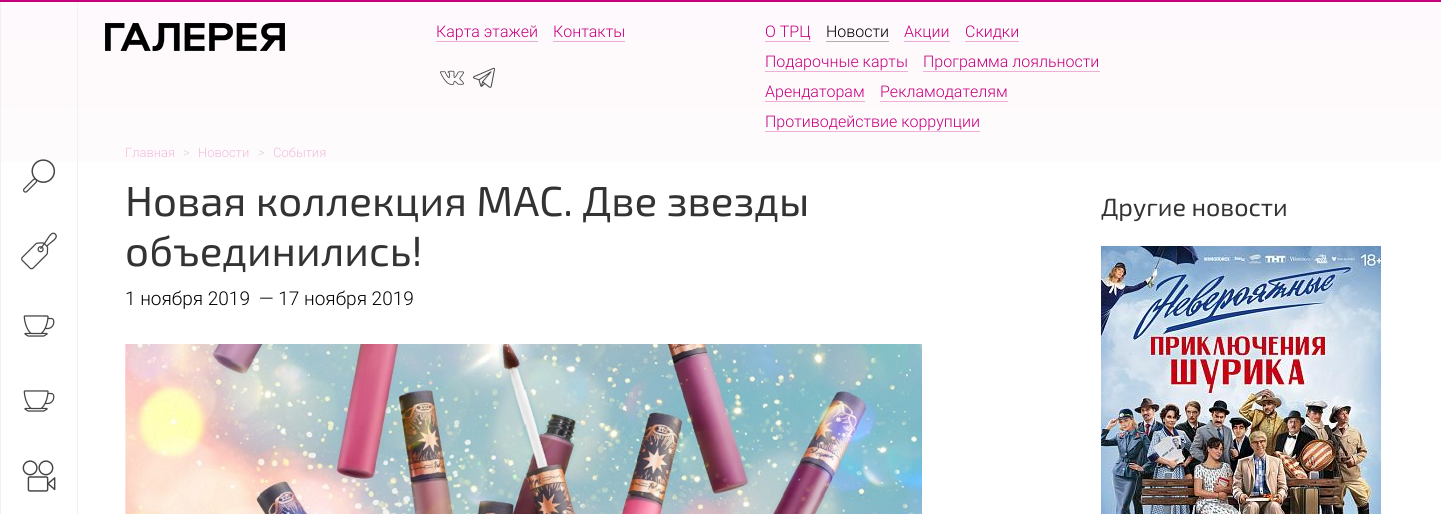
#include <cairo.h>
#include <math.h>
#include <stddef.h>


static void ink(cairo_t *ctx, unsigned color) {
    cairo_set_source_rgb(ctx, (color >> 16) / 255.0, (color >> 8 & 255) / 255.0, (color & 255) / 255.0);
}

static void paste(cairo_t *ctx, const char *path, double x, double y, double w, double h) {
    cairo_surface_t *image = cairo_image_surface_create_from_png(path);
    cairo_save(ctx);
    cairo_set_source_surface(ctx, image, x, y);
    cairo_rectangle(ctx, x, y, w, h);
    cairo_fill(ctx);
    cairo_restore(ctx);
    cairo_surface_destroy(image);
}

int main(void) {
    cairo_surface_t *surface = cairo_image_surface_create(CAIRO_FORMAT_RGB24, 1441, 514);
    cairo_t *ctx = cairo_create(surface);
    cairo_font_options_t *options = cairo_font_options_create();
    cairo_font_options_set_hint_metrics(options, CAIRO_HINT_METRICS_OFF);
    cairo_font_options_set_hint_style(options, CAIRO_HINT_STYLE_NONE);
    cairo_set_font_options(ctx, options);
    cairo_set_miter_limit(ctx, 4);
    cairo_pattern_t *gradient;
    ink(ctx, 0xFFFFFF);
    cairo_paint(ctx);
    gradient = cairo_pattern_create_linear(721, 2, 721, 202);
    cairo_pattern_add_color_stop_rgba(gradient, 0, 0.996, 0.976, 0.988, 1);
    cairo_pattern_add_color_stop_rgba(gradient, 1, 0.996, 0.988, 0.992, 1);
    cairo_set_source(ctx, gradient);
    cairo_pattern_destroy(gradient);
    cairo_rectangle(ctx, 1, 2, 1440, 160);
    cairo_fill(ctx);
    ink(ctx, 0xC4007E);
    cairo_rectangle(ctx, 0, 0, 1441, 2);
    cairo_fill(ctx);
    paste(ctx, "media/1.png", 105, 23, 180, 28);
    cairo_select_font_face(ctx, "Roboto Light", CAIRO_FONT_SLANT_NORMAL, CAIRO_FONT_WEIGHT_NORMAL);
    cairo_set_font_size(ctx, 16);
    cairo_move_to(ctx, 436, 37);
    cairo_show_text(ctx, "Карта этажей");
    ink(ctx, 0xECAED6);
    cairo_rectangle(ctx, 436, 41, 102, 1);
    cairo_fill(ctx);
    ink(ctx, 0xC4007E);
    cairo_move_to(ctx, 553, 37);
    cairo_show_text(ctx, "Контакты");
    ink(ctx, 0xECAED6);
    cairo_rectangle(ctx, 553, 41, 72, 1);
    cairo_fill(ctx);
    paste(ctx, "media/2.png", 440, 70, 24, 15);
    paste(ctx, "media/3.png", 473, 67, 22, 21);
    ink(ctx, 0xC4007E);
    cairo_move_to(ctx, 765, 37);
    cairo_show_text(ctx, "О ТРЦ");
    ink(ctx, 0xECAED6);
    cairo_rectangle(ctx, 765, 41, 46, 1);
    cairo_fill(ctx);
    ink(ctx, 0x000000);
    cairo_move_to(ctx, 826, 37);
    cairo_show_text(ctx, "Новости");
    ink(ctx, 0xB1AEB0);
    cairo_rectangle(ctx, 826, 41, 63, 1);
    cairo_fill(ctx);
    ink(ctx, 0xC4007E);
    cairo_move_to(ctx, 904, 37);
    cairo_show_text(ctx, "Акции");
    ink(ctx, 0xECAED6);
    cairo_rectangle(ctx, 904, 41, 46, 1);
    cairo_fill(ctx);
    ink(ctx, 0xC4007E);
    cairo_move_to(ctx, 965, 37);
    cairo_show_text(ctx, "Скидки");
    ink(ctx, 0xECAED6);
    cairo_rectangle(ctx, 965, 41, 54, 1);
    cairo_fill(ctx);
    ink(ctx, 0xC4007E);
    cairo_move_to(ctx, 765, 67);
    cairo_show_text(ctx, "Подарочные карты");
    ink(ctx, 0xECAFD6);
    cairo_rectangle(ctx, 765, 71, 143, 1);
    cairo_fill(ctx);
    ink(ctx, 0xC4007E);
    cairo_move_to(ctx, 923, 67);
    cairo_show_text(ctx, "Программа лояльности");
    ink(ctx, 0xECAFD6);
    cairo_rectangle(ctx, 923, 71, 177, 1);
    cairo_fill(ctx);
    ink(ctx, 0xC4007E);
    cairo_move_to(ctx, 765, 97);
    cairo_show_text(ctx, "Арендаторам");
    ink(ctx, 0xECAFD6);
    cairo_rectangle(ctx, 765, 101, 100, 1);
    cairo_fill(ctx);
    ink(ctx, 0xC4007E);
    cairo_move_to(ctx, 880, 97);
    cairo_show_text(ctx, "Рекламодателям");
    ink(ctx, 0xECAFD6);
    cairo_rectangle(ctx, 880, 101, 128, 1);
    cairo_fill(ctx);
    ink(ctx, 0xC4007E);
    cairo_move_to(ctx, 765, 127);
    cairo_show_text(ctx, "Противодействие коррупции");
    ink(ctx, 0xECAFD7);
    cairo_rectangle(ctx, 765, 131, 215, 1);
    cairo_fill(ctx);
    cairo_set_font_size(ctx, 13);
    ink(ctx, 0xF0BCDD);
    cairo_move_to(ctx, 125, 157);
    cairo_show_text(ctx, "Главная");
    ink(ctx, 0xD8D5D7);
    cairo_move_to(ctx, 183, 157);
    cairo_show_text(ctx, ">");
    ink(ctx, 0xF0BCDD);
    cairo_move_to(ctx, 198, 157);
    cairo_show_text(ctx, "Новости");
    ink(ctx, 0xD8D5D7);
    cairo_move_to(ctx, 258, 157);
    cairo_show_text(ctx, ">");
    ink(ctx, 0xF0BCDD);
    cairo_move_to(ctx, 273, 157);
    cairo_show_text(ctx, "События");
    cairo_select_font_face(ctx, "Exo 2", CAIRO_FONT_SLANT_NORMAL, CAIRO_FONT_WEIGHT_NORMAL);
    cairo_set_font_size(ctx, 42);
    ink(ctx, 0x333333);
    cairo_move_to(ctx, 125, 216);
    cairo_show_text(ctx, "Новая коллекция MAC. Две звезды");
    cairo_move_to(ctx, 125, 266);
    cairo_show_text(ctx, "объединились!");
    cairo_select_font_face(ctx, "Roboto Light", CAIRO_FONT_SLANT_NORMAL, CAIRO_FONT_WEIGHT_NORMAL);
    cairo_set_font_size(ctx, 19);
    ink(ctx, 0x000000);
    cairo_move_to(ctx, 125, 305);
    cairo_show_text(ctx, "1 ноября 2019");
    cairo_move_to(ctx, 259, 305);
    cairo_show_text(ctx, "— 17 ноября 2019");
    ink(ctx, 0xF1F1F1);
    cairo_rectangle(ctx, 77, 2, 1, 512);
    cairo_fill(ctx);
    cairo_rectangle(ctx, 0, 2, 1, 512);
    cairo_fill(ctx);
    paste(ctx, "media/4.png", 23, 159, 33, 34);
    paste(ctx, "media/5.png", 21, 232, 36, 38);
    paste(ctx, "media/6.png", 23, 315, 32, 22);
    paste(ctx, "media/6.png", 23, 390, 32, 22);
    paste(ctx, "media/7.png", 22, 460, 34, 32);
    cairo_select_font_face(ctx, "Exo 2", CAIRO_FONT_SLANT_NORMAL, CAIRO_FONT_WEIGHT_NORMAL);
    cairo_set_font_size(ctx, 25);
    ink(ctx, 0x333333);
    cairo_move_to(ctx, 1101, 216);
    cairo_show_text(ctx, "Другие новости");
    paste(ctx, "media/8.png", 1101, 246, 280, 268);
    paste(ctx, "media/9.png", 125, 344, 797, 170);
    cairo_surface_write_to_png(surface, "image.png");
    cairo_font_options_destroy(options);
    cairo_destroy(ctx);
    cairo_surface_destroy(surface);
    return 0;
}
